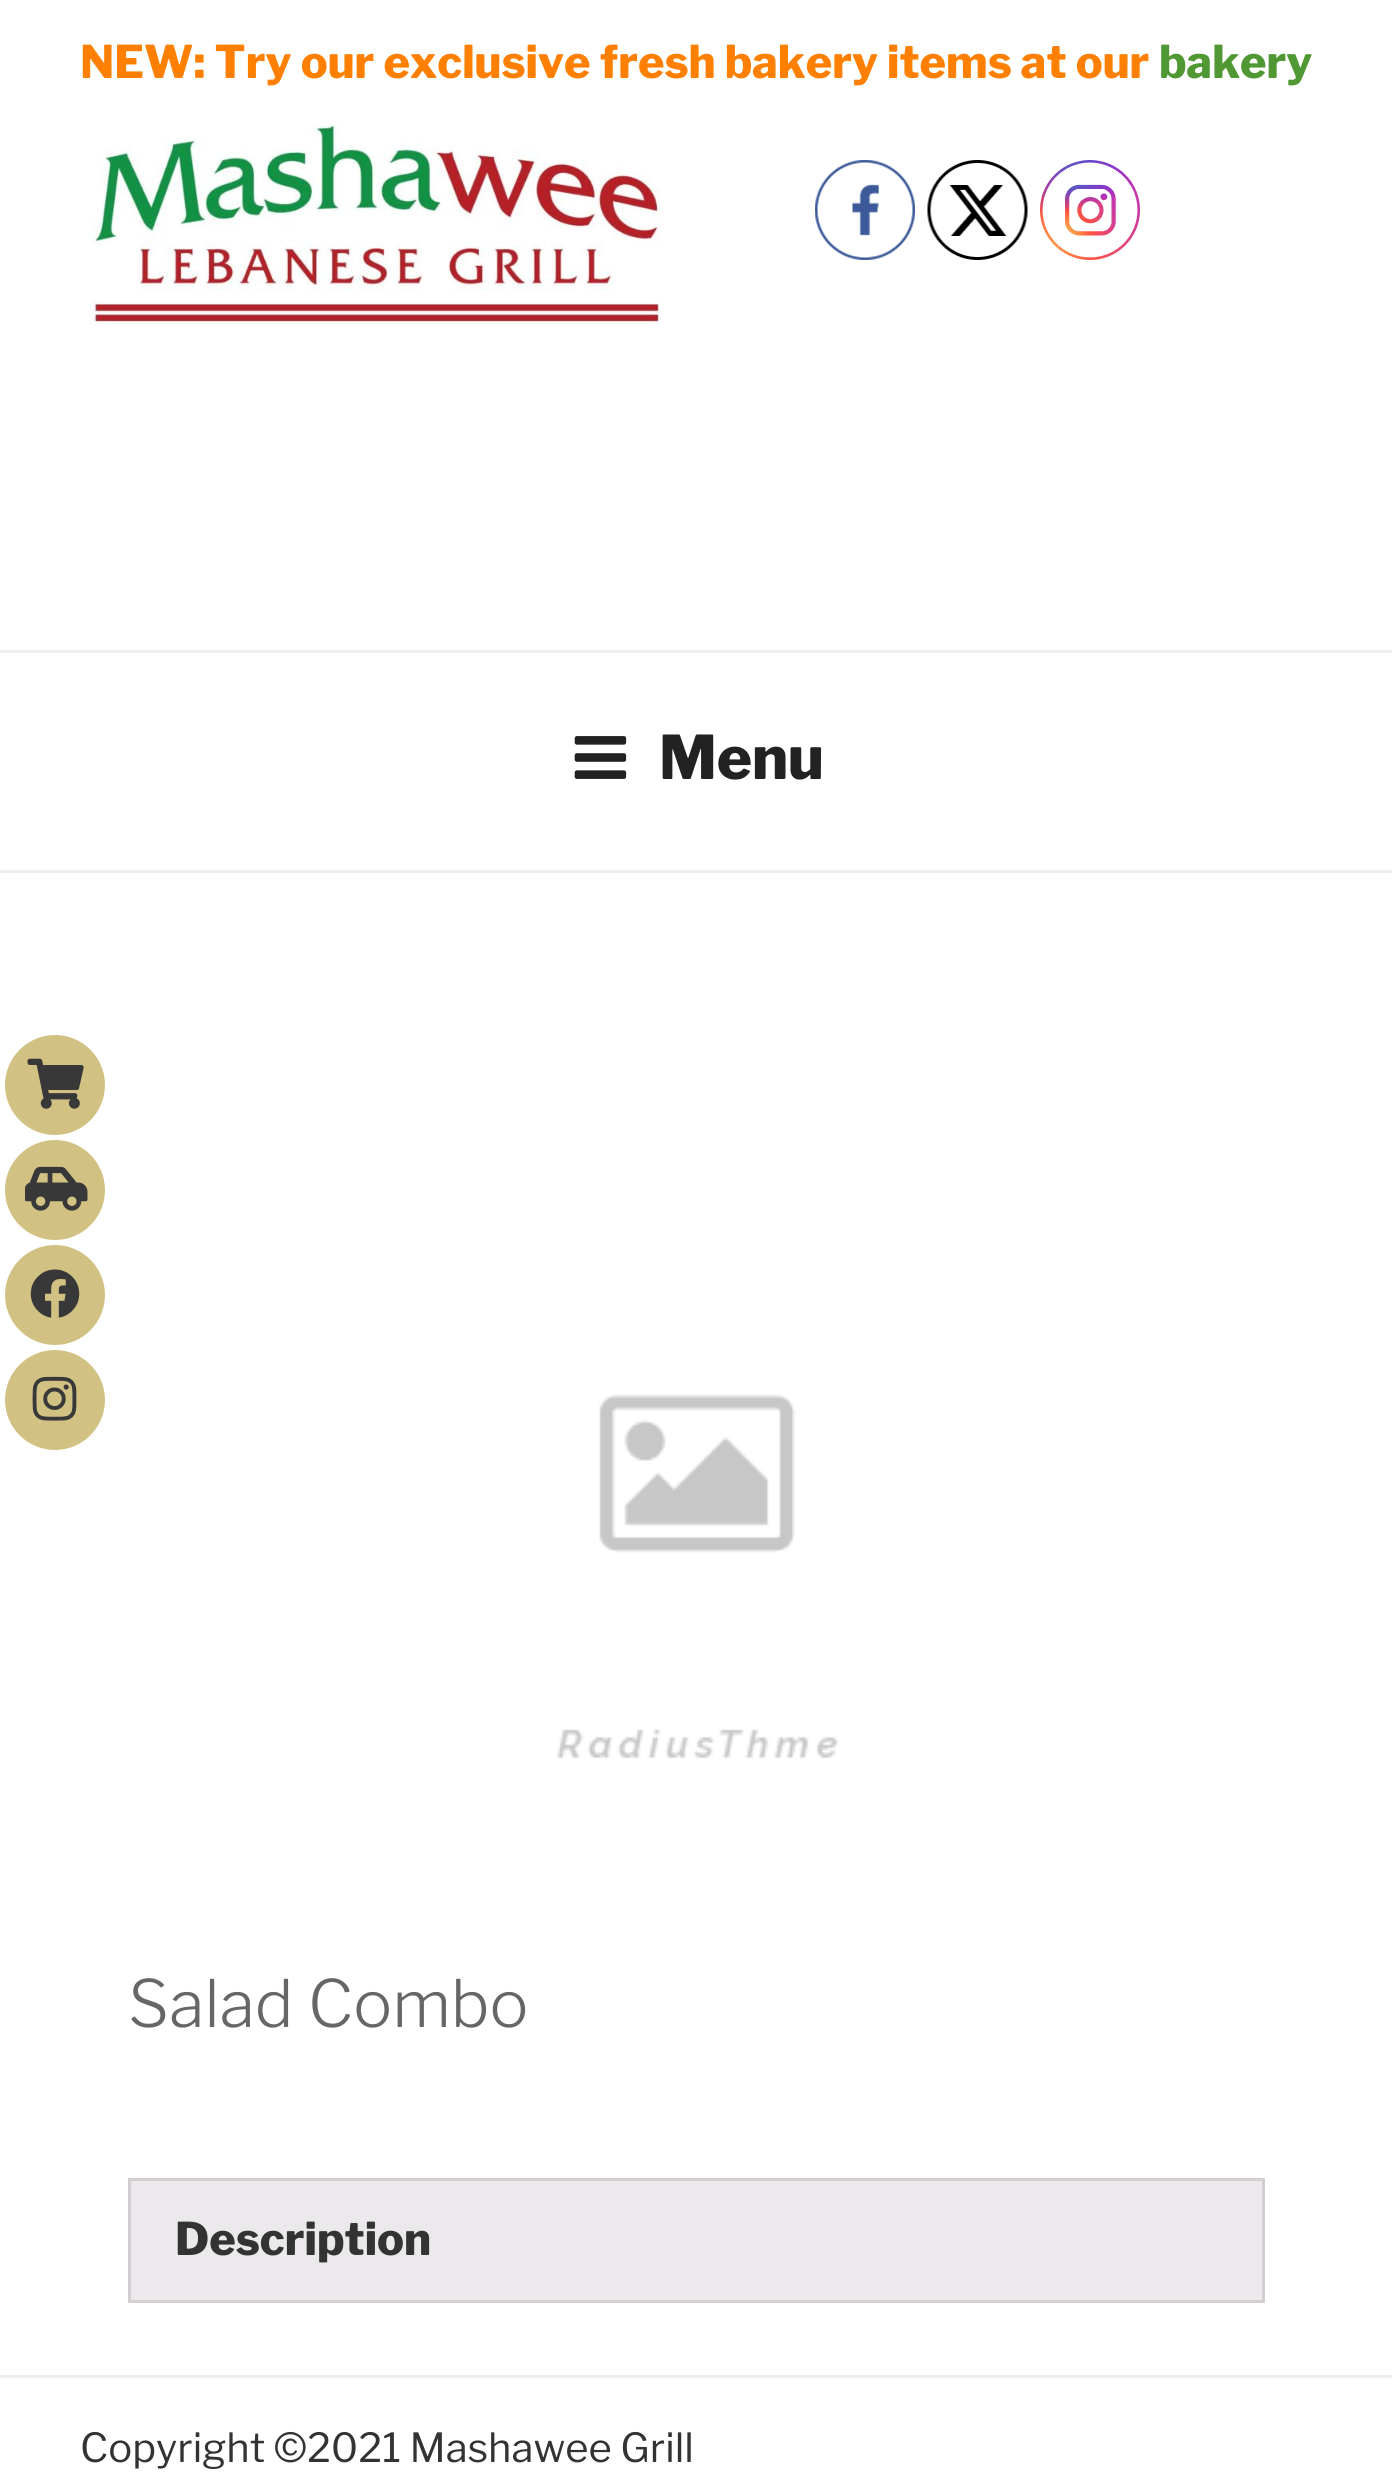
#include <cairo.h>
#include <math.h>
#include <stddef.h>


static void ink(cairo_t *ctx, unsigned color) {
    cairo_set_source_rgb(ctx, (color >> 16) / 255.0, (color >> 8 & 255) / 255.0, (color & 255) / 255.0);
}

static void paste(cairo_t *ctx, const char *path, double x, double y, double w, double h) {
    cairo_surface_t *image = cairo_image_surface_create_from_png(path);
    cairo_save(ctx);
    cairo_set_source_surface(ctx, image, x, y);
    cairo_rectangle(ctx, x, y, w, h);
    cairo_fill(ctx);
    cairo_restore(ctx);
    cairo_surface_destroy(image);
}

int main(void) {
    cairo_surface_t *surface = cairo_image_surface_create(CAIRO_FORMAT_RGB24, 1392, 2483);
    cairo_t *ctx = cairo_create(surface);
    cairo_font_options_t *options = cairo_font_options_create();
    cairo_font_options_set_hint_metrics(options, CAIRO_HINT_METRICS_OFF);
    cairo_font_options_set_hint_style(options, CAIRO_HINT_STYLE_NONE);
    cairo_set_font_options(ctx, options);
    cairo_set_miter_limit(ctx, 4);
    ink(ctx, 0xFFFFFF);
    cairo_paint(ctx);
    cairo_select_font_face(ctx, "Libre Franklin Thin", CAIRO_FONT_SLANT_NORMAL, CAIRO_FONT_WEIGHT_NORMAL);
    cairo_set_font_size(ctx, 45);
    ink(ctx, 0xFF8000);
    cairo_move_to(ctx, 80, 78);
    cairo_show_text(ctx, "NEW: Try our exclusive fresh bakery items at our");
    ink(ctx, 0x509834);
    cairo_move_to(ctx, 1159, 78);
    cairo_show_text(ctx, "bakery");
    paste(ctx, "media/1.png", 815, 160, 100, 100);
    paste(ctx, "media/2.png", 927, 160, 101, 100);
    paste(ctx, "media/3.png", 1040, 160, 100, 100);
    ink(ctx, 0xD1C283);
    cairo_arc(ctx, 55, 1085, 50, 0, 2 * M_PI);
    cairo_fill(ctx);
    paste(ctx, "media/4.png", 27, 1058, 57, 51);
    cairo_arc(ctx, 55, 1190, 50, 0, 2 * M_PI);
    cairo_fill(ctx);
    paste(ctx, "media/5.png", 25, 1166, 63, 45);
    cairo_arc(ctx, 55, 1295, 50, 0, 2 * M_PI);
    cairo_fill(ctx);
    paste(ctx, "media/6.png", 30, 1269, 50, 49);
    cairo_arc(ctx, 55, 1400, 50, 0, 2 * M_PI);
    cairo_fill(ctx);
    paste(ctx, "media/7.png", 32, 1376, 45, 45);
    paste(ctx, "media/8.png", 90, 125, 573, 200);
    ink(ctx, 0xEEEEEE);
    cairo_rectangle(ctx, 0, 650, 1392, 3);
    cairo_fill(ctx);
    cairo_rectangle(ctx, 0, 870, 1392, 3);
    cairo_fill(ctx);
    paste(ctx, "media/9.png", 574, 736, 53, 43);
    cairo_set_font_size(ctx, 60);
    ink(ctx, 0x222222);
    cairo_move_to(ctx, 659, 779);
    cairo_show_text(ctx, "Menu");
    paste(ctx, "media/10.png", 557, 1394, 282, 365);
    cairo_select_font_face(ctx, "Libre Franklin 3 Thin", CAIRO_FONT_SLANT_NORMAL, CAIRO_FONT_WEIGHT_NORMAL);
    cairo_set_font_size(ctx, 65);
    ink(ctx, 0x666666);
    cairo_move_to(ctx, 128, 2027);
    cairo_show_text(ctx, "Salad Combo");
    ink(ctx, 0xEBE9EB);
    cairo_rectangle(ctx, 129.5, 2179.5, 1134, 122);
    cairo_fill_preserve(ctx);
    ink(ctx, 0xD3CED2);
    cairo_set_line_width(ctx, 3);
    cairo_stroke(ctx);
    cairo_select_font_face(ctx, "Libre Franklin Thin", CAIRO_FONT_SLANT_NORMAL, CAIRO_FONT_WEIGHT_NORMAL);
    cairo_set_font_size(ctx, 45);
    ink(ctx, 0x333333);
    cairo_move_to(ctx, 175, 2255);
    cairo_show_text(ctx, "Description");
    ink(ctx, 0xEEEEEE);
    cairo_rectangle(ctx, 0, 2375, 1392, 3);
    cairo_fill(ctx);
    cairo_select_font_face(ctx, "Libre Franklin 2 Thin", CAIRO_FONT_SLANT_NORMAL, CAIRO_FONT_WEIGHT_NORMAL);
    cairo_set_font_size(ctx, 40);
    ink(ctx, 0x333333);
    cairo_move_to(ctx, 80, 2462);
    cairo_show_text(ctx, "Copyright ©2021 Mashawee Grill");
    cairo_surface_write_to_png(surface, "image.png");
    cairo_font_options_destroy(options);
    cairo_destroy(ctx);
    cairo_surface_destroy(surface);
    return 0;
}
